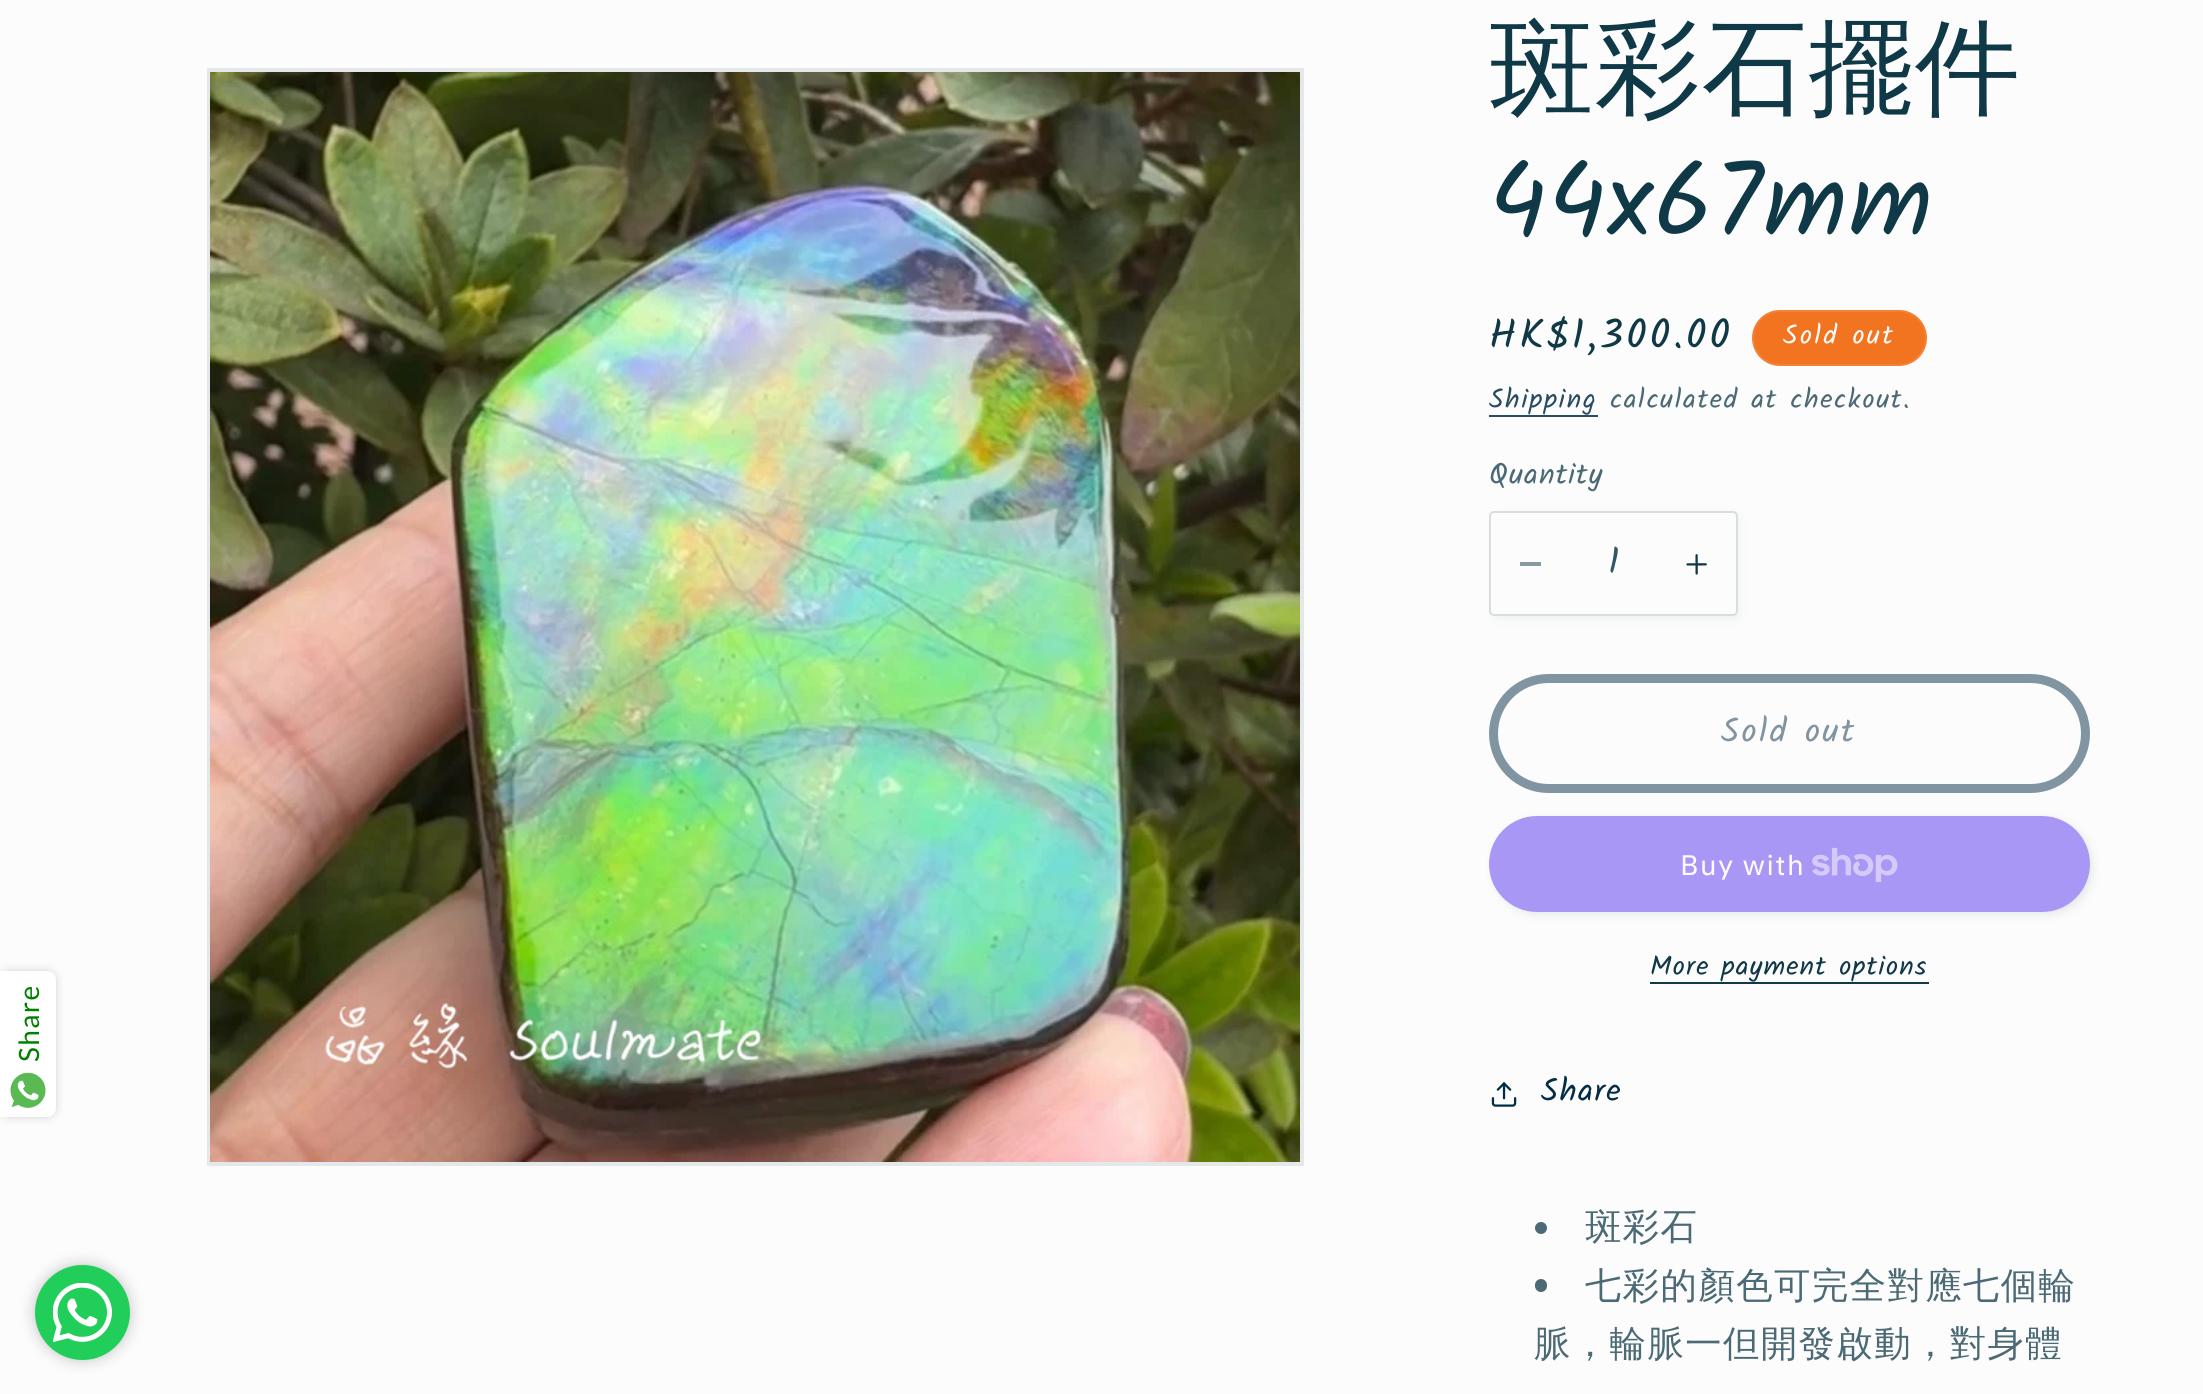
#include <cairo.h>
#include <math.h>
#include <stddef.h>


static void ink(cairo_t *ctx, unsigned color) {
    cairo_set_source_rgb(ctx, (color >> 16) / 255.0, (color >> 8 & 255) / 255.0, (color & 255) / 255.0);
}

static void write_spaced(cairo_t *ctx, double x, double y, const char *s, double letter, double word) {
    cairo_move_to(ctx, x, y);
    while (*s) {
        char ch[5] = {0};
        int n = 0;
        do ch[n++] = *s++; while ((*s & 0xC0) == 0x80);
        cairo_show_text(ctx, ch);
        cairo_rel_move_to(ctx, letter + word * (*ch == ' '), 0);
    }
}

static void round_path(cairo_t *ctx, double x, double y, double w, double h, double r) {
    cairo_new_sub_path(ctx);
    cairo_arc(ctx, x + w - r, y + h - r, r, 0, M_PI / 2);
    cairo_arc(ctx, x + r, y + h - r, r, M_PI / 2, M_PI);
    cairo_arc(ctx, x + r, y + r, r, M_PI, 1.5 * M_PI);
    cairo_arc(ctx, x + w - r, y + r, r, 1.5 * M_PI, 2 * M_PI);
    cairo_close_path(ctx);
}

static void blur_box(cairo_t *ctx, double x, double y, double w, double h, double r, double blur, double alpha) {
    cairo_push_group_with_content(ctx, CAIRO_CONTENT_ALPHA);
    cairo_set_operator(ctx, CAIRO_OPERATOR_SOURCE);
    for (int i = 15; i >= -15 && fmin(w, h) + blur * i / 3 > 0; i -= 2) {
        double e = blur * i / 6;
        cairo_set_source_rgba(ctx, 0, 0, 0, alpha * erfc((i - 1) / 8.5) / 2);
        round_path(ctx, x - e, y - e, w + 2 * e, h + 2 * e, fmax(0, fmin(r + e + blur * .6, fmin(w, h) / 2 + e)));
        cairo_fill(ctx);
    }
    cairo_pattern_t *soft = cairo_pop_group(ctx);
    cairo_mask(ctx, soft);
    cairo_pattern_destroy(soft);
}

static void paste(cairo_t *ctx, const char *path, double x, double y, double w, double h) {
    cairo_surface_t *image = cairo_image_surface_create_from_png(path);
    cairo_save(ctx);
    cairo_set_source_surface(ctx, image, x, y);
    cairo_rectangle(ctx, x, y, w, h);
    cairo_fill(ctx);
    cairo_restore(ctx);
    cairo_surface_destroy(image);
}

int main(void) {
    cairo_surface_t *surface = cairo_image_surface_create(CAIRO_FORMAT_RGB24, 2203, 1394);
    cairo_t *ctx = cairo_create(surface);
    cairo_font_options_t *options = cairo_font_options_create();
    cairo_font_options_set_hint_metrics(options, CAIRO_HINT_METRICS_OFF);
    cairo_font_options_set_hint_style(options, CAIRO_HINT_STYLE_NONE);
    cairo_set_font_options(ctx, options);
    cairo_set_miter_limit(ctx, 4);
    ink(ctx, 0xFCFCFC);
    cairo_paint(ctx);
    ink(ctx, 0xD3D3D3);
    blur_box(ctx, 0, 971, 56, 146, 9, 4.5, 1);
    ink(ctx, 0xFFFFFF);
    cairo_new_path(ctx);
    cairo_move_to(ctx, 0, 971);
    cairo_line_to(ctx, 47, 971);
    cairo_curve_to(ctx, 52, 971, 56, 975, 56, 980);
    cairo_line_to(ctx, 56, 1108);
    cairo_curve_to(ctx, 56, 1113, 52, 1117, 47, 1117);
    cairo_line_to(ctx, 0, 1117);
    cairo_close_path(ctx);
    cairo_fill(ctx);
    cairo_select_font_face(ctx, "Lato", CAIRO_FONT_SLANT_NORMAL, CAIRO_FONT_WEIGHT_NORMAL);
    cairo_set_font_size(ctx, 28);
    ink(ctx, 0x008000);
    cairo_save(ctx);
    cairo_translate(ctx, 39, 1062);
    cairo_rotate(ctx, -90 * M_PI / 180);
    write_spaced(ctx, 0, 0, "Share", 1.4, 0);
    cairo_restore(ctx);
    paste(ctx, "media/1.png", 10, 1072, 36, 36);
    cairo_rectangle(ctx, 209, 70, 1093, 1094);
    ink(ctx, 0xE4E8EA);
    cairo_set_line_width(ctx, 4);
    cairo_stroke(ctx);
    paste(ctx, "media/2.png", 210, 72, 1090, 1090);
    cairo_select_font_face(ctx, "WenQuanYi Zen Hei Medium", CAIRO_FONT_SLANT_NORMAL, CAIRO_FONT_WEIGHT_NORMAL);
    cairo_set_font_size(ctx, 105);
    ink(ctx, 0x103948);
    write_spaced(ctx, 1489, 104, "斑彩石擺件", 1.5, 0);
    cairo_select_font_face(ctx, "Kalam", CAIRO_FONT_SLANT_NORMAL, CAIRO_FONT_WEIGHT_NORMAL);
    write_spaced(ctx, 1489, 236, "44x67mm", 1.5, 0);
    cairo_set_font_size(ctx, 41);
    write_spaced(ctx, 1489, 348, "HK$1,300.00", 3, 0);
    ink(ctx, 0xF27421);
    round_path(ctx, 1752, 310, 175, 56, 28);
    cairo_fill(ctx);
    round_path(ctx, 1753, 311, 173, 54, 27);
    cairo_set_source_rgba(ctx, 0.988, 0.988, 0.988, 0.1);
    cairo_set_line_width(ctx, 2);
    cairo_stroke(ctx);
    cairo_set_font_size(ctx, 27.25);
    ink(ctx, 0xFCFCFC);
    write_spaced(ctx, 1783, 344, "Sold out", 2.25, 0);
    ink(ctx, 0x2A4B61);
    write_spaced(ctx, 1489, 408, "Shipping", 1.6, 0);
    cairo_rectangle(ctx, 1489, 415, 109, 2);
    cairo_fill(ctx);
    ink(ctx, 0x4B6A75);
    write_spaced(ctx, 1610, 408, "calculated at checkout.", 1.6, 0);
    cairo_set_font_size(ctx, 29.5);
    write_spaced(ctx, 1489, 484, "Quantity", 1, 0);
    ink(ctx, 0x103948);
    blur_box(ctx, 1493, 515, 248, 105, 5, 4.5, 0.05);
    ink(ctx, 0xFCFCFC);
    round_path(ctx, 1489, 511, 249, 105, 5);
    cairo_fill(ctx);
    ink(ctx, 0x869BA2);
    cairo_rectangle(ctx, 1520, 562, 21, 4);
    cairo_fill(ctx);
    paste(ctx, "media/3.png", 1686, 554, 21, 21);
    round_path(ctx, 1490, 512, 247, 103, 4);
    cairo_set_source_rgba(ctx, 0.063, 0.224, 0.282, 0.15);
    cairo_stroke(ctx);
    cairo_set_font_size(ctx, 36.4);
    ink(ctx, 0x335663);
    cairo_move_to(ctx, 1608, 573);
    cairo_show_text(ctx, "1");
    round_path(ctx, 1493.5, 678.5, 592, 110, 55);
    ink(ctx, 0x8194A1);
    cairo_set_line_width(ctx, 9);
    cairo_stroke(ctx);
    cairo_set_font_size(ctx, 34);
    write_spaced(ctx, 1721, 742, "Sold out", 2.25, 0);
    cairo_save(ctx);
    cairo_set_fill_rule(ctx, CAIRO_FILL_RULE_EVEN_ODD);
    cairo_new_path(ctx);
    cairo_move_to(ctx, 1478, 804);
    cairo_line_to(ctx, 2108, 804);
    cairo_line_to(ctx, 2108, 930);
    cairo_line_to(ctx, 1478, 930);
    cairo_close_path(ctx);
    cairo_move_to(ctx, 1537, 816);
    cairo_line_to(ctx, 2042, 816);
    cairo_curve_to(ctx, 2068.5, 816, 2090, 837.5, 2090, 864);
    cairo_curve_to(ctx, 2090, 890.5, 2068.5, 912, 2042, 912);
    cairo_line_to(ctx, 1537, 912);
    cairo_curve_to(ctx, 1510.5, 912, 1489, 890.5, 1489, 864);
    cairo_curve_to(ctx, 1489, 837.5, 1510.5, 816, 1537, 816);
    cairo_close_path(ctx);
    cairo_clip(ctx);
    ink(ctx, 0x103948);
    blur_box(ctx, 1493, 819, 600, 96, 48, 4.5, 0.1);
    cairo_restore(ctx);
    cairo_set_source_rgba(ctx, 0.329, 0.2, 0.922, 0.5);
    round_path(ctx, 1489, 816, 601, 96, 48);
    cairo_fill(ctx);
    cairo_select_font_face(ctx, "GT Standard", CAIRO_FONT_SLANT_NORMAL, CAIRO_FONT_WEIGHT_NORMAL);
    cairo_set_font_size(ctx, 28);
    ink(ctx, 0xFCFCFC);
    write_spaced(ctx, 1680, 875, "Buy with", 1.4, 0);
    paste(ctx, "media/4.png", 1812, 847, 86, 35);
    cairo_select_font_face(ctx, "Kalam", CAIRO_FONT_SLANT_NORMAL, CAIRO_FONT_WEIGHT_NORMAL);
    cairo_set_font_size(ctx, 27.25);
    ink(ctx, 0x103948);
    write_spaced(ctx, 1650, 975, "More payment options", 1.1, 0);
    cairo_rectangle(ctx, 1650, 982, 279, 2);
    cairo_fill(ctx);
    paste(ctx, "media/5.png", 1491, 1082, 26, 25);
    cairo_set_font_size(ctx, 32);
    ink(ctx, 0x052C46);
    write_spaced(ctx, 1541, 1101, "Share", 1.4, 0);
    ink(ctx, 0x4B6A75);
    cairo_new_path(ctx);
    cairo_arc(ctx, 1541, 1228, 6, 0, 2 * M_PI);
    cairo_fill(ctx);
    cairo_select_font_face(ctx, "WenQuanYi Zen Hei Medium", CAIRO_FONT_SLANT_NORMAL, CAIRO_FONT_WEIGHT_NORMAL);
    cairo_set_font_size(ctx, 36.4);
    write_spaced(ctx, 1585, 1239, "斑彩石", 1.4, 0);
    round_path(ctx, 1535, 1279, 12, 13, 6);
    cairo_fill(ctx);
    write_spaced(ctx, 1585, 1298, "七彩的顏色可完全對應七個輪", 1.4, 0);
    write_spaced(ctx, 1534, 1356, "脈，輪脈一但開發啟動，對身體", 1.4, 0);
    ink(ctx, 0xC2C2C2);
    blur_box(ctx, 35, 1265, 95, 95, 47.5, 7, 1);
    ink(ctx, 0x22CE5A);
    cairo_arc(ctx, 82.5, 1312.5, 47.5, 0, 2 * M_PI);
    cairo_fill(ctx);
    paste(ctx, "media/6.png", 53, 1283, 59, 59);
    cairo_surface_write_to_png(surface, "image.png");
    cairo_font_options_destroy(options);
    cairo_destroy(ctx);
    cairo_surface_destroy(surface);
    return 0;
}
